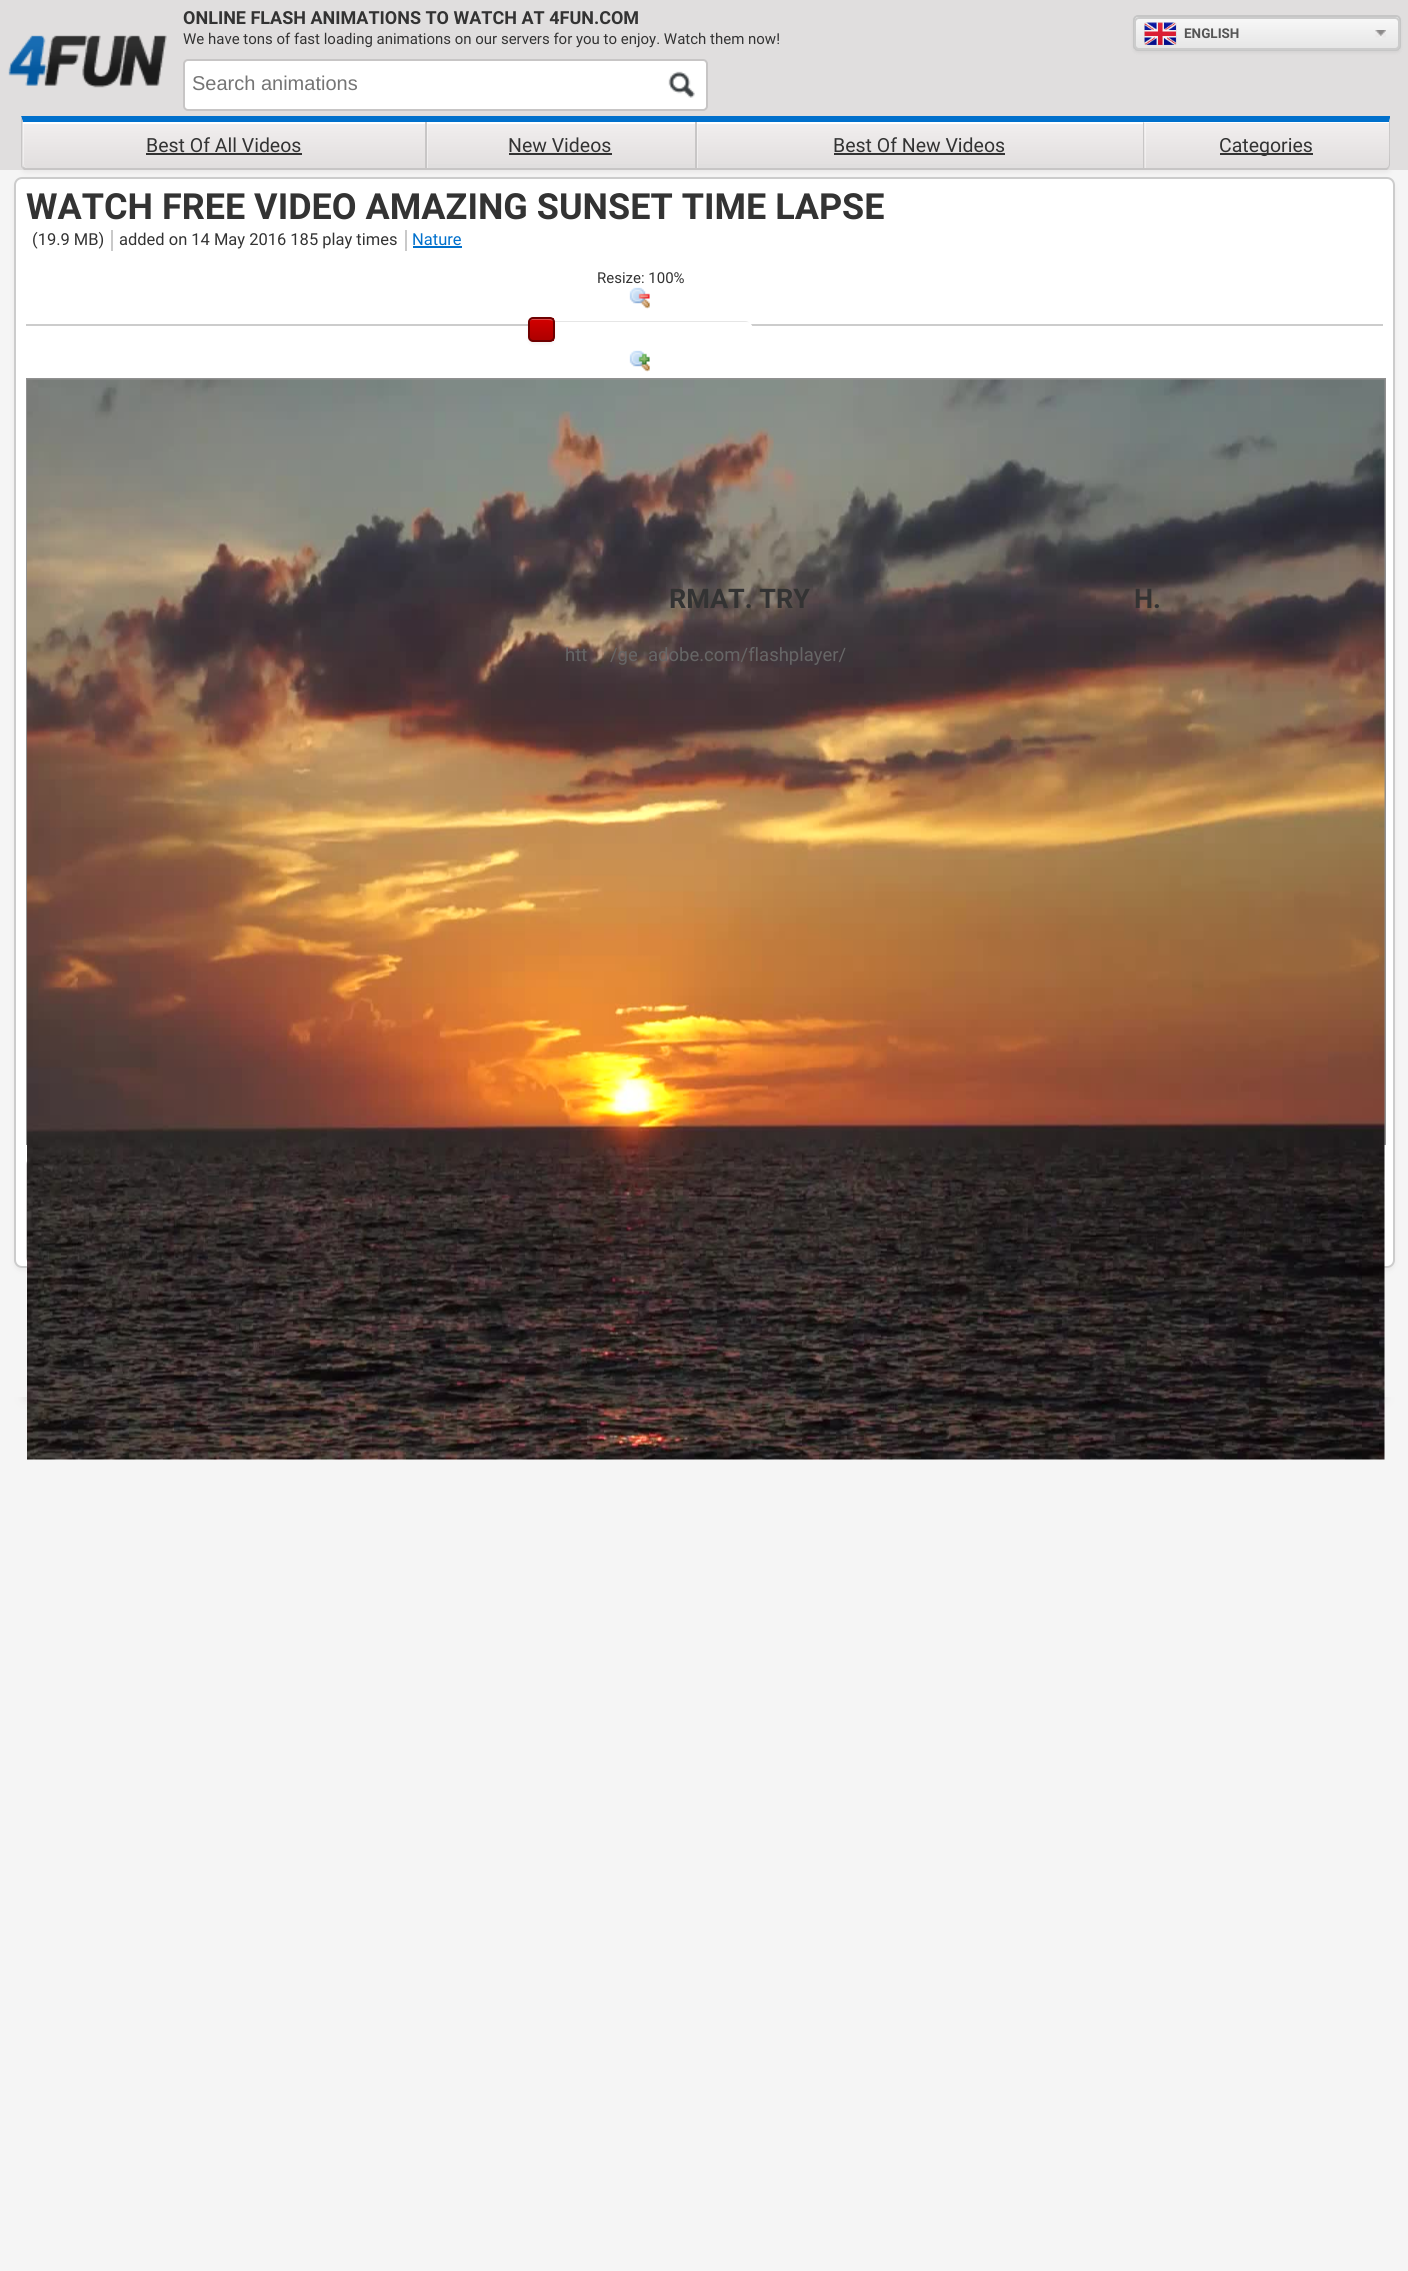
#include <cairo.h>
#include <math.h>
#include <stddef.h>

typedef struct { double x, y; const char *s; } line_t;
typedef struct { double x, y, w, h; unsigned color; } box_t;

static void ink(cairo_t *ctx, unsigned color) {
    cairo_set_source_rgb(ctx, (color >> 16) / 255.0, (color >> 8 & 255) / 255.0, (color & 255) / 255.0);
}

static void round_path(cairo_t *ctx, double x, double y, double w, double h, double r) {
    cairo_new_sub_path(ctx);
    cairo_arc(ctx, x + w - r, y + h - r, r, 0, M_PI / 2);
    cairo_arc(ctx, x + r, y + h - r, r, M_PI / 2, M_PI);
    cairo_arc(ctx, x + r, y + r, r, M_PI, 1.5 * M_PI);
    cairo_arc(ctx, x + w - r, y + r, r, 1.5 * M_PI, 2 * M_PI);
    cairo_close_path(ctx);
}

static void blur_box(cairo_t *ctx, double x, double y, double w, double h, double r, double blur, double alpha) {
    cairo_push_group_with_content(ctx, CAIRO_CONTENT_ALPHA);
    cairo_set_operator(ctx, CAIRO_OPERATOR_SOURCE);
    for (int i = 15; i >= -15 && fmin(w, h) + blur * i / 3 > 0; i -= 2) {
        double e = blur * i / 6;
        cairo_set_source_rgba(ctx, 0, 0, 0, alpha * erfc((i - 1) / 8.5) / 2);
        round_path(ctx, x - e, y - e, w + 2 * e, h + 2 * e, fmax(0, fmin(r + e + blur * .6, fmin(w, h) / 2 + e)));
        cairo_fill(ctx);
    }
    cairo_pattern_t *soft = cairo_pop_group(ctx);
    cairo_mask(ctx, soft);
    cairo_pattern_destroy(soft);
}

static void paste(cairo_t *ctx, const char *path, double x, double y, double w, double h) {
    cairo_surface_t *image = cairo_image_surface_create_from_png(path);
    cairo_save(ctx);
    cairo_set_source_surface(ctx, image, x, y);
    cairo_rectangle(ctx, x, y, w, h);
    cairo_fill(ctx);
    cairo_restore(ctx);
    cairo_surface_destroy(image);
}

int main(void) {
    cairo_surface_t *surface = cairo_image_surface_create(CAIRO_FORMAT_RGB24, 1408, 2271);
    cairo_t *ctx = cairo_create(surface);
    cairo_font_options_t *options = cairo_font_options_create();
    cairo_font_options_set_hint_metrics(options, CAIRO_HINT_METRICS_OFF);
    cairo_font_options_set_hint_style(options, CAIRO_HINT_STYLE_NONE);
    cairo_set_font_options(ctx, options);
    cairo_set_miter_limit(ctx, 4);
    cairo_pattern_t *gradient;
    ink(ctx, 0xF5F5F5);
    cairo_paint(ctx);
    ink(ctx, 0xE0DEDE);
    cairo_rectangle(ctx, 0, 0, 1408, 170);
    cairo_fill(ctx);
    paste(ctx, "media/1.png", 8, 35, 159, 53);
    cairo_select_font_face(ctx, "Roboto", CAIRO_FONT_SLANT_NORMAL, CAIRO_FONT_WEIGHT_BOLD);
    cairo_set_font_size(ctx, 18);
    ink(ctx, 0x333333);
    cairo_move_to(ctx, 183, 24);
    cairo_show_text(ctx, "ONLINE FLASH ANIMATIONS TO WATCH AT 4FUN.COM");
    cairo_select_font_face(ctx, "Roboto", CAIRO_FONT_SLANT_NORMAL, CAIRO_FONT_WEIGHT_NORMAL);
    cairo_set_font_size(ctx, 15);
    cairo_move_to(ctx, 183, 44);
    cairo_show_text(ctx, "We have tons of fast loading animations on our servers for you to enjoy. Watch them now!");
    ink(ctx, 0x000000);
    blur_box(ctx, 1133, 17, 268, 36, 5, 1.5, 0.05);
    gradient = cairo_pattern_create_linear(1267, 16, 1267, 50);
    cairo_pattern_add_color_stop_rgba(gradient, 0, 0.976, 0.976, 0.976, 1);
    cairo_pattern_add_color_stop_rgba(gradient, 1, 0.898, 0.898, 0.898, 1);
    cairo_set_source(ctx, gradient);
    cairo_pattern_destroy(gradient);
    cairo_rectangle(ctx, 1134, 17, 266, 33);
    cairo_fill(ctx);
    round_path(ctx, 1134, 16, 266, 34, 4);
    ink(ctx, 0xC6C6C6);
    cairo_stroke(ctx);
    round_path(ctx, 1135, 18, 264, 31, 4);
    ink(ctx, 0xCCCCCC);
    cairo_stroke(ctx);
    paste(ctx, "media/2.png", 1375, 30, 11, 8);
    paste(ctx, "media/3.png", 1144, 22, 33, 23);
    cairo_select_font_face(ctx, "Roboto", CAIRO_FONT_SLANT_NORMAL, CAIRO_FONT_WEIGHT_BOLD);
    cairo_set_font_size(ctx, 13.5);
    ink(ctx, 0x555555);
    cairo_move_to(ctx, 1184, 38);
    cairo_show_text(ctx, "ENGLISH");
    ink(ctx, 0xFFFFFF);
    round_path(ctx, 184, 60, 523, 50, 4);
    cairo_fill_preserve(ctx);
    ink(ctx, 0xC7C5C5);
    cairo_stroke(ctx);
    cairo_select_font_face(ctx, "Liberation Sans", CAIRO_FONT_SLANT_NORMAL, CAIRO_FONT_WEIGHT_NORMAL);
    cairo_set_font_size(ctx, 20);
    ink(ctx, 0x757575);
    cairo_move_to(ctx, 192, 90);
    cairo_show_text(ctx, "Search animations");
    paste(ctx, "media/4.png", 668, 71, 27, 27);
    ink(ctx, 0xE0DEDE);
    blur_box(ctx, 14, 180, 1381, 1091, 8, 2, 0.5);
    ink(ctx, 0xFFFFFF);
    round_path(ctx, 15, 178, 1379, 1089, 7);
    cairo_fill_preserve(ctx);
    ink(ctx, 0xCCCCCC);
    cairo_stroke(ctx);
    cairo_save(ctx);
    cairo_set_fill_rule(ctx, CAIRO_FILL_RULE_EVEN_ODD);
    cairo_new_path(ctx);
    cairo_move_to(ctx, 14, 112);
    cairo_line_to(ctx, 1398, 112);
    cairo_line_to(ctx, 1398, 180);
    cairo_line_to(ctx, 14, 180);
    cairo_close_path(ctx);
    cairo_move_to(ctx, 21, 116);
    cairo_line_to(ctx, 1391, 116);
    cairo_line_to(ctx, 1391, 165);
    cairo_curve_to(ctx, 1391, 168, 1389, 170, 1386, 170);
    cairo_line_to(ctx, 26, 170);
    cairo_curve_to(ctx, 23, 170, 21, 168, 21, 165);
    cairo_close_path(ctx);
    cairo_clip(ctx);
    ink(ctx, 0xE0DEDE);
    blur_box(ctx, 21, 119, 1370, 54, 5, 2, 0.5);
    cairo_restore(ctx);
    ink(ctx, 0x0070CC);
    cairo_new_path(ctx);
    cairo_move_to(ctx, 1390, 118);
    cairo_line_to(ctx, 1390, 116);
    cairo_line_to(ctx, 21, 116);
    cairo_line_to(ctx, 23, 122);
    cairo_line_to(ctx, 1389, 122);
    cairo_close_path(ctx);
    cairo_fill(ctx);
    ink(ctx, 0xC7C5C5);
    cairo_new_path(ctx);
    cairo_move_to(ctx, 1390, 118);
    cairo_line_to(ctx, 1390, 165);
    cairo_line_to(ctx, 1389, 168);
    cairo_line_to(ctx, 1388, 167);
    cairo_curve_to(ctx, 1390, 165, 1389, 127, 1389, 122);
    cairo_close_path(ctx);
    cairo_fill(ctx);
    cairo_new_path(ctx);
    cairo_move_to(ctx, 24, 170);
    cairo_line_to(ctx, 22, 168);
    cairo_line_to(ctx, 23, 167);
    cairo_line_to(ctx, 26, 168);
    cairo_line_to(ctx, 1386, 168);
    cairo_line_to(ctx, 1388, 167);
    cairo_line_to(ctx, 1389, 168);
    cairo_line_to(ctx, 1387, 170);
    cairo_close_path(ctx);
    cairo_fill(ctx);
    cairo_new_path(ctx);
    cairo_move_to(ctx, 22, 122);
    cairo_line_to(ctx, 22, 166);
    cairo_line_to(ctx, 23, 167);
    cairo_line_to(ctx, 22, 168);
    cairo_curve_to(ctx, 21, 167, 21, 166, 21, 165);
    cairo_line_to(ctx, 21, 116);
    cairo_line_to(ctx, 23, 122);
    cairo_close_path(ctx);
    cairo_fill(ctx);
    gradient = cairo_pattern_create_linear(224, 121, 224, 168);
    cairo_pattern_add_color_stop_rgba(gradient, 0, 0.949, 0.937, 0.937, 1);
    cairo_pattern_add_color_stop_rgba(gradient, 1, 0.882, 0.871, 0.871, 1);
    cairo_set_source(ctx, gradient);
    cairo_pattern_destroy(gradient);
    cairo_new_path(ctx);
    cairo_move_to(ctx, 23, 122);
    cairo_line_to(ctx, 425, 122);
    cairo_line_to(ctx, 425, 168);
    cairo_line_to(ctx, 28, 168);
    cairo_curve_to(ctx, 25, 168, 23, 166, 23, 163);
    cairo_close_path(ctx);
    cairo_fill(ctx);
    cairo_set_source_rgba(ctx, 1, 1, 1, 0.4);
    cairo_new_path(ctx);
    cairo_move_to(ctx, 23, 123);
    cairo_line_to(ctx, 23, 163);
    cairo_curve_to(ctx, 23, 166, 25, 168, 28, 168);
    cairo_curve_to(ctx, 26, 168, 24, 166, 24, 164);
    cairo_line_to(ctx, 24, 123);
    cairo_close_path(ctx);
    cairo_fill(ctx);
    gradient = cairo_pattern_create_linear(560, 121, 560, 168);
    cairo_pattern_add_color_stop_rgba(gradient, 0, 0.969, 0.961, 0.961, 1);
    cairo_pattern_add_color_stop_rgba(gradient, 1, 0.929, 0.922, 0.922, 1);
    cairo_set_source(ctx, gradient);
    cairo_pattern_destroy(gradient);
    cairo_rectangle(ctx, 427, 123, 1, 45);
    cairo_fill(ctx);
    gradient = cairo_pattern_create_linear(919, 121, 919, 168);
    cairo_pattern_add_color_stop_rgba(gradient, 0, 0.969, 0.961, 0.961, 1);
    cairo_pattern_add_color_stop_rgba(gradient, 1, 0.929, 0.922, 0.922, 1);
    cairo_set_source(ctx, gradient);
    cairo_pattern_destroy(gradient);
    cairo_rectangle(ctx, 697, 123, 1, 45);
    cairo_fill(ctx);
    ink(ctx, 0xFFFFFF);
    cairo_rectangle(ctx, 23, 122, 1120, 2);
    cairo_fill(ctx);
    cairo_select_font_face(ctx, "Roboto", CAIRO_FONT_SLANT_NORMAL, CAIRO_FONT_WEIGHT_NORMAL);
    cairo_set_font_size(ctx, 19.5);
    ink(ctx, 0x333333);
    cairo_move_to(ctx, 146, 152);
    cairo_show_text(ctx, "Best Of All Videos");
    cairo_rectangle(ctx, 146, 153, 156, 2);
    cairo_fill(ctx);
    gradient = cairo_pattern_create_linear(560, 121, 560, 168);
    cairo_pattern_add_color_stop_rgba(gradient, 0, 0.949, 0.937, 0.937, 1);
    cairo_pattern_add_color_stop_rgba(gradient, 1, 0.882, 0.871, 0.871, 1);
    cairo_set_source(ctx, gradient);
    cairo_pattern_destroy(gradient);
    cairo_rectangle(ctx, 428, 124, 267, 40);
    cairo_fill(ctx);
    ink(ctx, 0xC8C6C6);
    cairo_rectangle(ctx, 425, 122, 2, 46);
    cairo_fill(ctx);
    ink(ctx, 0x333333);
    cairo_move_to(ctx, 508, 152);
    cairo_show_text(ctx, "New Videos");
    cairo_rectangle(ctx, 509, 153, 103, 2);
    cairo_fill(ctx);
    gradient = cairo_pattern_create_linear(919, 121, 919, 168);
    cairo_pattern_add_color_stop_rgba(gradient, 0, 0.949, 0.937, 0.937, 1);
    cairo_pattern_add_color_stop_rgba(gradient, 1, 0.882, 0.871, 0.871, 1);
    cairo_set_source(ctx, gradient);
    cairo_pattern_destroy(gradient);
    cairo_rectangle(ctx, 698, 124, 445, 40);
    cairo_fill(ctx);
    ink(ctx, 0xC8C6C6);
    cairo_rectangle(ctx, 695, 122, 2, 46);
    cairo_fill(ctx);
    ink(ctx, 0x333333);
    cairo_move_to(ctx, 833, 152);
    cairo_show_text(ctx, "Best Of New Videos");
    cairo_rectangle(ctx, 834, 153, 171, 2);
    cairo_fill(ctx);
    gradient = cairo_pattern_create_linear(1266, 121, 1266, 168);
    cairo_pattern_add_color_stop_rgba(gradient, 0, 0.949, 0.937, 0.937, 1);
    cairo_pattern_add_color_stop_rgba(gradient, 1, 0.882, 0.871, 0.871, 1);
    cairo_set_source(ctx, gradient);
    cairo_pattern_destroy(gradient);
    cairo_new_path(ctx);
    cairo_move_to(ctx, 1143, 122);
    cairo_line_to(ctx, 1389, 122);
    cairo_line_to(ctx, 1389, 163);
    cairo_curve_to(ctx, 1389, 166, 1387, 168, 1384, 168);
    cairo_line_to(ctx, 1143, 168);
    cairo_close_path(ctx);
    cairo_fill(ctx);
    gradient = cairo_pattern_create_linear(1266, 121, 1266, 168);
    cairo_pattern_add_color_stop_rgba(gradient, 0, 0.969, 0.961, 0.961, 1);
    cairo_pattern_add_color_stop_rgba(gradient, 1, 0.929, 0.922, 0.922, 1);
    cairo_set_source(ctx, gradient);
    cairo_pattern_destroy(gradient);
    cairo_rectangle(ctx, 1145, 123, 1, 45);
    cairo_fill(ctx);
    ink(ctx, 0xFFFFFF);
    cairo_rectangle(ctx, 1144, 122, 245, 1);
    cairo_fill(ctx);
    ink(ctx, 0xC8C6C6);
    cairo_new_path(ctx);
    cairo_move_to(ctx, 1144, 123);
    cairo_line_to(ctx, 1143, 122);
    cairo_line_to(ctx, 1143, 168);
    cairo_line_to(ctx, 1144, 168);
    cairo_close_path(ctx);
    cairo_fill(ctx);
    ink(ctx, 0x333333);
    cairo_rectangle(ctx, 1220, 153, 93, 2);
    cairo_fill(ctx);
    cairo_move_to(ctx, 1219, 152);
    cairo_show_text(ctx, "Categories");
    cairo_select_font_face(ctx, "Roboto", CAIRO_FONT_SLANT_NORMAL, CAIRO_FONT_WEIGHT_BOLD);
    cairo_set_font_size(ctx, 36);
    cairo_move_to(ctx, 26, 219);
    cairo_show_text(ctx, "WATCH FREE VIDEO AMAZING SUNSET TIME LAPSE");
    cairo_select_font_face(ctx, "Roboto", CAIRO_FONT_SLANT_NORMAL, CAIRO_FONT_WEIGHT_NORMAL);
    cairo_set_font_size(ctx, 16.5);
    cairo_move_to(ctx, 32, 245);
    cairo_show_text(ctx, "(19.9 MB)");
    cairo_move_to(ctx, 119, 245);
    cairo_show_text(ctx, "added on 14 May 2016 185 play times");
    ink(ctx, 0xC9C9C9);
    cairo_rectangle(ctx, 111, 230, 2, 21);
    cairo_fill(ctx);
    ink(ctx, 0x0070CC);
    cairo_move_to(ctx, 412, 245);
    cairo_show_text(ctx, "Nature");
    {
        static const box_t items[] = {
            {405, 230, 2, 21, 0xC9C9C9},
            {413, 246, 49, 2, 0x0070CC},
            {26, 324, 1357, 2, 0xCCCCCC},
        };
        for (size_t i = 0; i < sizeof items / sizeof *items; i++) {
            ink(ctx, items[i].color);
            cairo_rectangle(ctx, items[i].x, items[i].y, items[i].w, items[i].h);
            cairo_fill(ctx);
        }
    }
    cairo_set_font_size(ctx, 15);
    ink(ctx, 0x333333);
    cairo_move_to(ctx, 597, 283);
    cairo_show_text(ctx, "Resize: 100%");
    paste(ctx, "media/5.png", 629, 287, 21, 22);
    ink(ctx, 0xFFFFFF);
    round_path(ctx, 528, 321, 225, 17, 8.5);
    cairo_fill(ctx);
    cairo_set_source_rgba(ctx, 0, 0, 0, 0.1);
    cairo_new_path(ctx);
    cairo_move_to(ctx, 538, 322);
    cairo_line_to(ctx, 746, 322);
    cairo_curve_to(ctx, 748, 322, 749, 322, 750, 323);
    cairo_curve_to(ctx, 749, 322, 747, 321, 745, 321);
    cairo_line_to(ctx, 536, 321);
    cairo_curve_to(ctx, 528, 321, 525, 333, 533, 337);
    cairo_curve_to(ctx, 527, 332, 530, 322, 538, 322);
    cairo_close_path(ctx);
    cairo_fill(ctx);
    ink(ctx, 0x000000);
    blur_box(ctx, 528, 318, 27, 26, 5, 1.5, 0.05);
    gradient = cairo_pattern_create_linear(542, 318, 542, 341);
    cairo_pattern_add_color_stop_rgba(gradient, 0, 0.831, 0, 0, 1);
    cairo_pattern_add_color_stop_rgba(gradient, 1, 0.671, 0, 0, 1);
    cairo_set_source(ctx, gradient);
    cairo_pattern_destroy(gradient);
    cairo_rectangle(ctx, 530, 318, 24, 23);
    cairo_fill(ctx);
    cairo_set_source_rgba(ctx, 1, 1, 1, 0.3);
    cairo_new_path(ctx);
    cairo_move_to(ctx, 532, 320);
    cairo_line_to(ctx, 548, 320);
    cairo_curve_to(ctx, 552, 320, 553.5, 321, 554, 322.5);
    cairo_curve_to(ctx, 554, 318, 552.5, 318, 548, 318);
    cairo_line_to(ctx, 536, 318);
    cairo_curve_to(ctx, 533.5, 318, 530, 317.5, 530, 321.5);
    cairo_curve_to(ctx, 530.5, 320.5, 531, 320, 532, 320);
    cairo_close_path(ctx);
    cairo_fill(ctx);
    round_path(ctx, 529, 318, 25, 23, 4);
    ink(ctx, 0x6E0000);
    cairo_stroke(ctx);
    paste(ctx, "media/6.png", 629, 350, 21, 22);
    cairo_rectangle(ctx, 27, 379, 1358, 765);
    ink(ctx, 0x909090);
    cairo_stroke(ctx);
    round_path(ctx, 27, 1158, 670, 106, 7);
    ink(ctx, 0xCCCACA);
    cairo_stroke(ctx);
    cairo_save(ctx);
    cairo_set_fill_rule(ctx, CAIRO_FILL_RULE_EVEN_ODD);
    cairo_new_path(ctx);
    cairo_move_to(ctx, 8, 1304);
    cairo_line_to(ctx, 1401, 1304);
    cairo_line_to(ctx, 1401, 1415);
    cairo_line_to(ctx, 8, 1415);
    cairo_close_path(ctx);
    cairo_move_to(ctx, 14, 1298);
    cairo_line_to(ctx, 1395, 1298);
    cairo_line_to(ctx, 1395, 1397);
    cairo_line_to(ctx, 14, 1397);
    cairo_close_path(ctx);
    cairo_clip(ctx);
    ink(ctx, 0xE0DEDE);
    blur_box(ctx, 23, 1319, 1363, 81, 0, 4.5, 0.7);
    cairo_restore(ctx);
    paste(ctx, "media/7.png", 27, 379, 1358, 1081);
    cairo_select_font_face(ctx, "Roboto", CAIRO_FONT_SLANT_NORMAL, CAIRO_FONT_WEIGHT_BOLD);
    cairo_set_font_size(ctx, 27);
    ink(ctx, 0x333333);
    cairo_move_to(ctx, 669, 608);
    cairo_show_text(ctx, "RMAT. TRY");
    cairo_move_to(ctx, 1134, 608);
    cairo_show_text(ctx, "H.");
    cairo_select_font_face(ctx, "Roboto", CAIRO_FONT_SLANT_NORMAL, CAIRO_FONT_WEIGHT_NORMAL);
    cairo_set_font_size(ctx, 18.5);
    ink(ctx, 0x666666);
    {
        static const line_t items[] = {
            {565, 661, "htt"},
            {610, 661, "/ge"},
            {648, 661, "adobe.com/flashplayer/"},
        };
        for (size_t i = 0; i < sizeof items / sizeof *items; i++) {
            cairo_move_to(ctx, items[i].x, items[i].y);
            cairo_show_text(ctx, items[i].s);
        }
    }
    cairo_surface_write_to_png(surface, "image.png");
    cairo_font_options_destroy(options);
    cairo_destroy(ctx);
    cairo_surface_destroy(surface);
    return 0;
}
